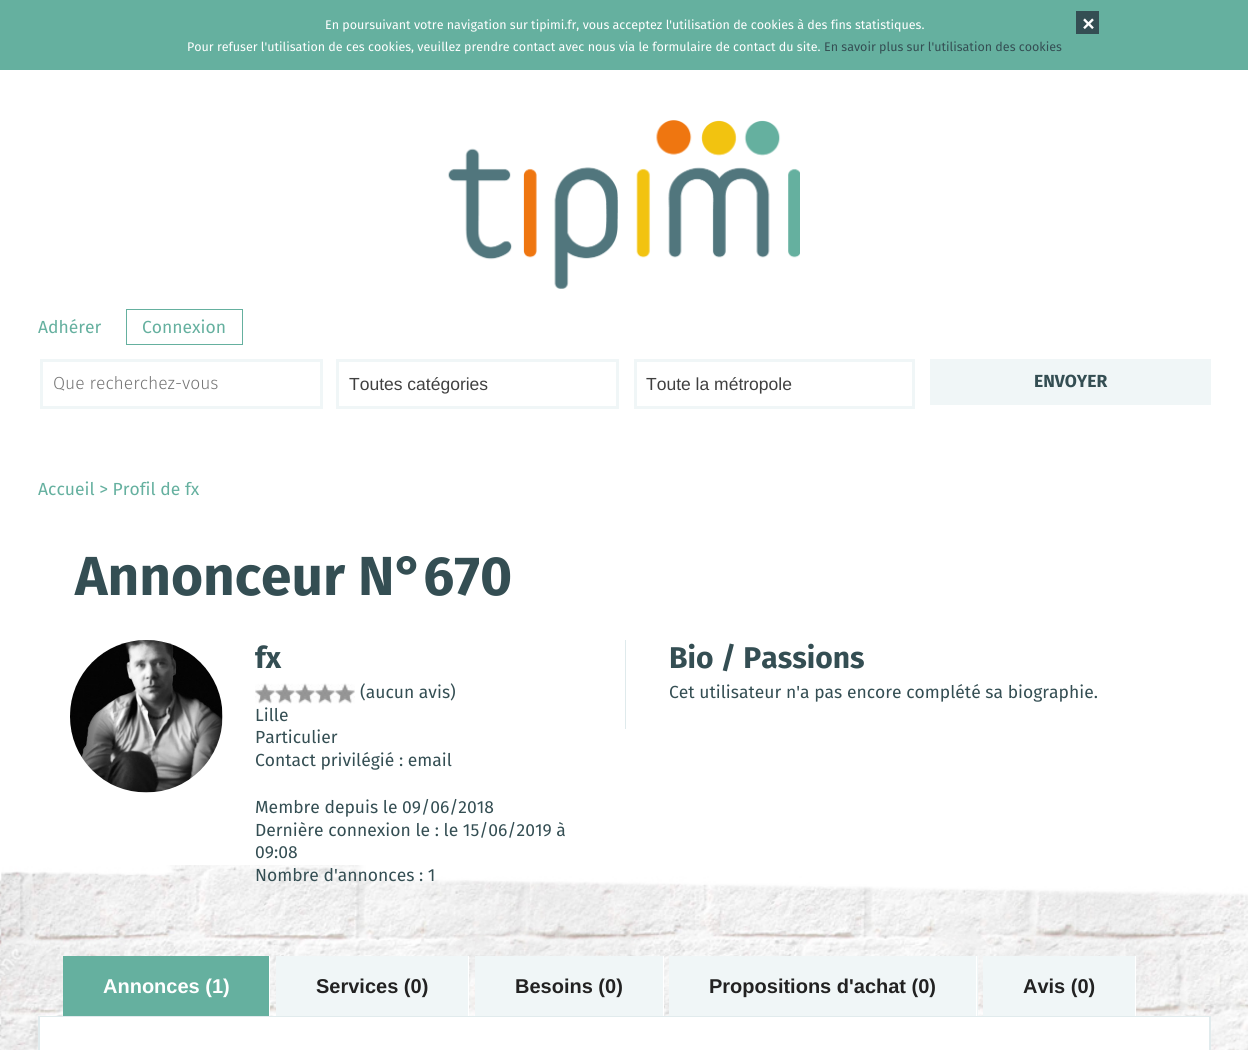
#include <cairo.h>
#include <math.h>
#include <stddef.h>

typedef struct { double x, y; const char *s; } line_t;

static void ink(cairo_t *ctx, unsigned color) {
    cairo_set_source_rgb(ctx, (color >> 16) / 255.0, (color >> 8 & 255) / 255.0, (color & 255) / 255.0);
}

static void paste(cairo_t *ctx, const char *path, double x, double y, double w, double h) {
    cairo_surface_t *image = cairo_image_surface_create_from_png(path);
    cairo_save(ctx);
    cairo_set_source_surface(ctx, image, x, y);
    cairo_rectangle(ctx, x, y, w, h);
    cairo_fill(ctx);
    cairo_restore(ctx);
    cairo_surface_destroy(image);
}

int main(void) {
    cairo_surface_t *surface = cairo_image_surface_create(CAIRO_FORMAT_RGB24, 1248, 1050);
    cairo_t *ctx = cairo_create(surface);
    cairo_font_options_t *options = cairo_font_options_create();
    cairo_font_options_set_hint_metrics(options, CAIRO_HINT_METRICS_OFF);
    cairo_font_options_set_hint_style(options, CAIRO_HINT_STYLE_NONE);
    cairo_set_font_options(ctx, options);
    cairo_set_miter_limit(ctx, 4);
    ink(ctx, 0xFFFFFF);
    cairo_paint(ctx);
    ink(ctx, 0x65B09F);
    cairo_rectangle(ctx, 0, 0, 1248, 70);
    cairo_fill(ctx);
    cairo_select_font_face(ctx, "Fira Sans", CAIRO_FONT_SLANT_NORMAL, CAIRO_FONT_WEIGHT_NORMAL);
    cairo_set_font_size(ctx, 12.5);
    ink(ctx, 0xFFFFFF);
    cairo_move_to(ctx, 325, 29);
    cairo_show_text(ctx, "En poursuivant votre navigation sur tipimi.fr, vous acceptez l'utilisation de cookies à des fins statistiques.");
    ink(ctx, 0x344E53);
    cairo_rectangle(ctx, 1076, 11, 23, 23);
    cairo_fill(ctx);
    cairo_set_font_size(ctx, 30);
    ink(ctx, 0xFFFFFF);
    cairo_move_to(ctx, 1081, 33);
    cairo_show_text(ctx, "×");
    cairo_set_font_size(ctx, 12.5);
    cairo_move_to(ctx, 187, 51);
    cairo_show_text(ctx, "Pour refuser l'utilisation de ces cookies, veuillez prendre contact avec nous via le formulaire de contact du site.");
    ink(ctx, 0x344E53);
    cairo_move_to(ctx, 824, 51);
    cairo_show_text(ctx, "En savoir plus sur l'utilisation des cookies");
    paste(ctx, "media/1.png", 448, 120, 352, 169);
    cairo_set_font_size(ctx, 17.5);
    ink(ctx, 0x65B09F);
    cairo_move_to(ctx, 38, 333);
    cairo_show_text(ctx, "Adhérer");
    cairo_rectangle(ctx, 126.5, 309.5, 116, 35);
    cairo_set_line_width(ctx, 1);
    cairo_stroke(ctx);
    cairo_move_to(ctx, 142, 333);
    cairo_show_text(ctx, "Connexion");
    cairo_rectangle(ctx, 41.5, 360.5, 280, 47);
    ink(ctx, 0xF0F6F7);
    cairo_set_line_width(ctx, 3);
    cairo_stroke(ctx);
    cairo_select_font_face(ctx, "Fira Sans Light", CAIRO_FONT_SLANT_NORMAL, CAIRO_FONT_WEIGHT_NORMAL);
    ink(ctx, 0x757575);
    cairo_move_to(ctx, 53, 389);
    cairo_show_text(ctx, "Que recherchez-vous");
    cairo_rectangle(ctx, 337.5, 360.5, 280, 47);
    ink(ctx, 0xF0F6F7);
    cairo_stroke(ctx);
    cairo_select_font_face(ctx, "Liberation Sans", CAIRO_FONT_SLANT_NORMAL, CAIRO_FONT_WEIGHT_NORMAL);
    ink(ctx, 0x404040);
    cairo_move_to(ctx, 349, 390);
    cairo_show_text(ctx, "Toutes catégories");
    cairo_rectangle(ctx, 635.5, 360.5, 278, 47);
    ink(ctx, 0xF0F6F7);
    cairo_stroke(ctx);
    ink(ctx, 0x404040);
    cairo_move_to(ctx, 646, 390);
    cairo_show_text(ctx, "Toute la métropole");
    ink(ctx, 0xF0F6F7);
    cairo_rectangle(ctx, 930, 359, 281, 46);
    cairo_fill(ctx);
    cairo_select_font_face(ctx, "Fira Sans", CAIRO_FONT_SLANT_NORMAL, CAIRO_FONT_WEIGHT_BOLD);
    ink(ctx, 0x344E53);
    cairo_move_to(ctx, 1034, 387);
    cairo_show_text(ctx, "ENVOYER");
    paste(ctx, "media/2.png", 0, 865, 1248, 185);
    cairo_select_font_face(ctx, "Fira Sans", CAIRO_FONT_SLANT_NORMAL, CAIRO_FONT_WEIGHT_NORMAL);
    ink(ctx, 0x65B09F);
    cairo_move_to(ctx, 38, 495);
    cairo_show_text(ctx, "Accueil > Profil de fx");
    cairo_select_font_face(ctx, "Fira Sans", CAIRO_FONT_SLANT_NORMAL, CAIRO_FONT_WEIGHT_BOLD);
    cairo_set_font_size(ctx, 55);
    ink(ctx, 0x344E53);
    cairo_move_to(ctx, 75, 595);
    cairo_show_text(ctx, "Annonceur N°670");
    paste(ctx, "media/3.png", 70, 640, 153, 153);
    cairo_set_font_size(ctx, 30);
    cairo_move_to(ctx, 255, 668);
    cairo_show_text(ctx, "fx");
    paste(ctx, "media/4.png", 255, 683, 20, 21);
    paste(ctx, "media/5.png", 275, 683, 20, 21);
    paste(ctx, "media/4.png", 295, 683, 20, 21);
    paste(ctx, "media/4.png", 315, 683, 20, 21);
    paste(ctx, "media/4.png", 335, 683, 20, 21);
    cairo_select_font_face(ctx, "Fira Sans", CAIRO_FONT_SLANT_NORMAL, CAIRO_FONT_WEIGHT_NORMAL);
    cairo_set_font_size(ctx, 17.5);
    {
        static const line_t items[] = {
            {360, 698, "(aucun avis)"},
            {255, 721, "Lille"},
            {255, 743, "Particulier"},
            {255, 766, "Contact privilégié : email"},
            {255, 813, "Membre depuis le 09/06/2018"},
            {255, 836, "Dernière connexion le : le 15/06/2019 à"},
            {255, 858, "09:08"},
            {255, 881, "Nombre d'annonces : 1"},
        };
        for (size_t i = 0; i < sizeof items / sizeof *items; i++) {
            cairo_move_to(ctx, items[i].x, items[i].y);
            cairo_show_text(ctx, items[i].s);
        }
    }
    ink(ctx, 0xDFEAEC);
    cairo_rectangle(ctx, 625, 640, 1, 89);
    cairo_fill(ctx);
    cairo_select_font_face(ctx, "Fira Sans", CAIRO_FONT_SLANT_NORMAL, CAIRO_FONT_WEIGHT_BOLD);
    cairo_set_font_size(ctx, 30);
    ink(ctx, 0x344E53);
    cairo_move_to(ctx, 669, 668);
    cairo_show_text(ctx, "Bio / Passions");
    cairo_select_font_face(ctx, "Fira Sans", CAIRO_FONT_SLANT_NORMAL, CAIRO_FONT_WEIGHT_NORMAL);
    cairo_set_font_size(ctx, 17.5);
    cairo_move_to(ctx, 669, 698);
    cairo_show_text(ctx, "Cet utilisateur n'a pas encore complété sa biographie.");
    ink(ctx, 0x65B09F);
    cairo_rectangle(ctx, 63, 956, 206, 60);
    cairo_fill(ctx);
    ink(ctx, 0xFFFFFF);
    cairo_rectangle(ctx, 269, 956, 1, 60);
    cairo_fill(ctx);
    cairo_select_font_face(ctx, "Liberation Sans", CAIRO_FONT_SLANT_NORMAL, CAIRO_FONT_WEIGHT_BOLD);
    cairo_set_font_size(ctx, 20);
    cairo_move_to(ctx, 103, 993);
    cairo_show_text(ctx, "Annonces (1)");
    ink(ctx, 0xF0F6F7);
    cairo_rectangle(ctx, 276, 956, 192, 60);
    cairo_fill(ctx);
    ink(ctx, 0xFFFFFF);
    cairo_rectangle(ctx, 468, 956, 1, 60);
    cairo_fill(ctx);
    ink(ctx, 0x222222);
    cairo_move_to(ctx, 316, 993);
    cairo_show_text(ctx, "Services (0)");
    ink(ctx, 0xF0F6F7);
    cairo_rectangle(ctx, 475, 956, 188, 60);
    cairo_fill(ctx);
    ink(ctx, 0xFFFFFF);
    cairo_rectangle(ctx, 663, 956, 1, 60);
    cairo_fill(ctx);
    ink(ctx, 0x222222);
    cairo_move_to(ctx, 515, 993);
    cairo_show_text(ctx, "Besoins (0)");
    ink(ctx, 0xF0F6F7);
    cairo_rectangle(ctx, 669, 956, 309, 60);
    cairo_fill(ctx);
    ink(ctx, 0xFFFFFF);
    cairo_rectangle(ctx, 976, 956, 1, 60);
    cairo_fill(ctx);
    ink(ctx, 0x222222);
    cairo_move_to(ctx, 709, 993);
    cairo_show_text(ctx, "Propositions d'achat (0)");
    ink(ctx, 0xF0F6F7);
    cairo_rectangle(ctx, 983, 956, 152, 60);
    cairo_fill(ctx);
    ink(ctx, 0xFFFFFF);
    cairo_rectangle(ctx, 1135, 956, 1, 60);
    cairo_fill(ctx);
    ink(ctx, 0x222222);
    cairo_move_to(ctx, 1023, 993);
    cairo_show_text(ctx, "Avis (0)");
    ink(ctx, 0xE1EBED);
    cairo_rectangle(ctx, 1210, 1016, 1, 34);
    cairo_fill(ctx);
    cairo_rectangle(ctx, 38, 1016, 1, 34);
    cairo_fill(ctx);
    ink(ctx, 0xFFFFFF);
    cairo_rectangle(ctx, 39.5, 1016.5, 1170, 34);
    cairo_fill_preserve(ctx);
    ink(ctx, 0xE1EBED);
    cairo_set_line_width(ctx, 1);
    cairo_stroke(ctx);
    cairo_surface_write_to_png(surface, "image.png");
    cairo_font_options_destroy(options);
    cairo_destroy(ctx);
    cairo_surface_destroy(surface);
    return 0;
}
